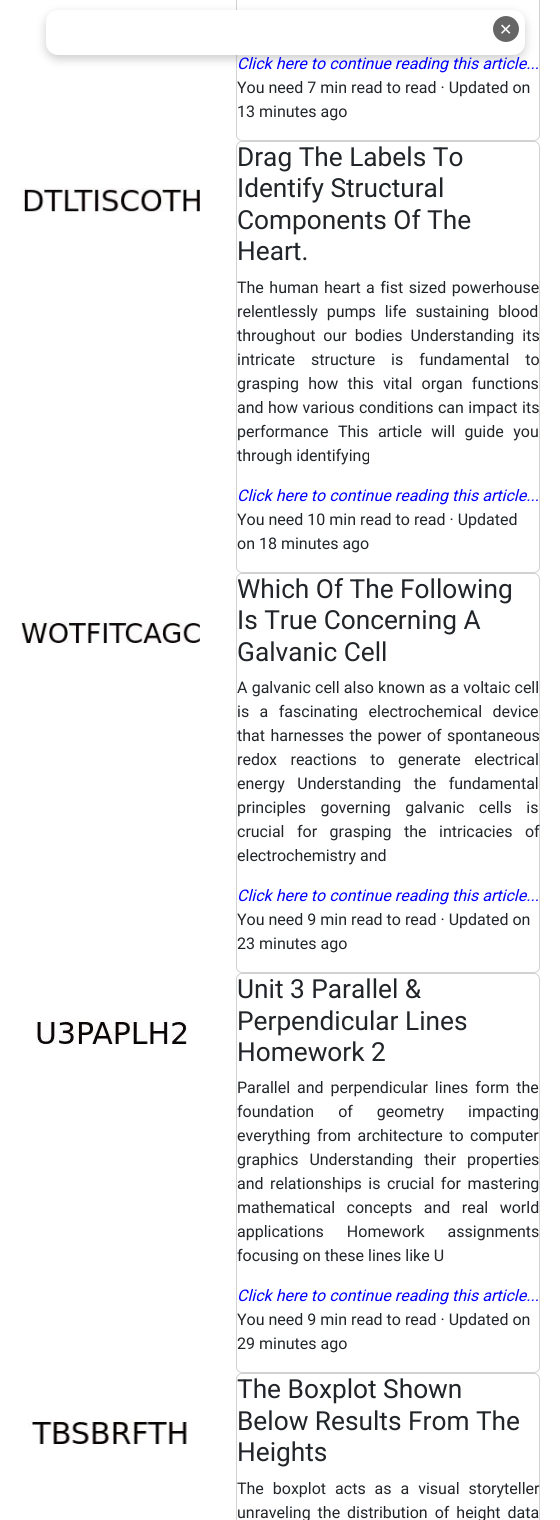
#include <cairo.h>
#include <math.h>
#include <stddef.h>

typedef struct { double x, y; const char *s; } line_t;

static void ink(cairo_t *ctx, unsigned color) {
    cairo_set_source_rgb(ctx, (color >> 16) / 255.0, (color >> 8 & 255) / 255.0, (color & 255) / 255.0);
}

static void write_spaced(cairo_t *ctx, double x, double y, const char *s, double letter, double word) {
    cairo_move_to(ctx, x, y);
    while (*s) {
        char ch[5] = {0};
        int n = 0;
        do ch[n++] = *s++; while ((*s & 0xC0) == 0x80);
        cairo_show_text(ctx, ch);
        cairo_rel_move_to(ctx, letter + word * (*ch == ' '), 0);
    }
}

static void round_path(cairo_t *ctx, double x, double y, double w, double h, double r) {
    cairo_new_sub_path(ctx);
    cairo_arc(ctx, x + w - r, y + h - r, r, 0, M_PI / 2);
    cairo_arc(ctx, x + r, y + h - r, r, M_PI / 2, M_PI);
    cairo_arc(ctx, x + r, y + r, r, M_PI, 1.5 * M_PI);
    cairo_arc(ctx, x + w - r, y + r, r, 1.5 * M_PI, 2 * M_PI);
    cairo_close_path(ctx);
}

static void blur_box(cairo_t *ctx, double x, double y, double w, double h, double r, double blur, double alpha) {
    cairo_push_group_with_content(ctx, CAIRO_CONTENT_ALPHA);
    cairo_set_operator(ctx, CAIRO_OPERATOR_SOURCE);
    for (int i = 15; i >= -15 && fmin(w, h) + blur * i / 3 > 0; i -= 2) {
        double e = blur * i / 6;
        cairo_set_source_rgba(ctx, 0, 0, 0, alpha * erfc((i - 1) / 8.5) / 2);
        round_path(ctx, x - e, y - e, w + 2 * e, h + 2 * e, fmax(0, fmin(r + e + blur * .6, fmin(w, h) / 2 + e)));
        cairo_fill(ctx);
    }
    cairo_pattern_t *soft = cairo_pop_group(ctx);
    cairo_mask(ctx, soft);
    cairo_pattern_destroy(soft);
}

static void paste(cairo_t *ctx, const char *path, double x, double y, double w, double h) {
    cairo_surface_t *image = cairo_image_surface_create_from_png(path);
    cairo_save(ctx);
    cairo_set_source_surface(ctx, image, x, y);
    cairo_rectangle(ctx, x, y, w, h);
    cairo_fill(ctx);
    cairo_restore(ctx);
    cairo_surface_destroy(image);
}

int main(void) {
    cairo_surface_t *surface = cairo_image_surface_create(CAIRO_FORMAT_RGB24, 560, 1520);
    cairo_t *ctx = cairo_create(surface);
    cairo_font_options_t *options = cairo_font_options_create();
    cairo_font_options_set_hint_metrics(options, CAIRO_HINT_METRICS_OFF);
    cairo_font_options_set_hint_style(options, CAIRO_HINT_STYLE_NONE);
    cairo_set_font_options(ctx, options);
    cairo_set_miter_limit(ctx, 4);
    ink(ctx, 0xFFFFFF);
    cairo_paint(ctx);
    round_path(ctx, 236.5, -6.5, 303, 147, 5.5);
    ink(ctx, 0xD2D2D2);
    cairo_set_line_width(ctx, 1);
    cairo_stroke(ctx);
    ink(ctx, 0x000000);
    blur_box(ctx, 46, 14, 479, 45, 12, 5, 0.2);
    ink(ctx, 0xFFFFFF);
    round_path(ctx, 46, 10, 479, 45, 12);
    cairo_fill(ctx);
    ink(ctx, 0x666666);
    cairo_arc(ctx, 506, 29, 13, 0, 2 * M_PI);
    cairo_fill(ctx);
    cairo_select_font_face(ctx, "DejaVu Sans", CAIRO_FONT_SLANT_NORMAL, CAIRO_FONT_WEIGHT_NORMAL);
    cairo_set_font_size(ctx, 16);
    ink(ctx, 0xFFFFFF);
    cairo_move_to(ctx, 499, 35);
    cairo_show_text(ctx, "✕");
    cairo_select_font_face(ctx, "Roboto", CAIRO_FONT_SLANT_ITALIC, CAIRO_FONT_WEIGHT_NORMAL);
    ink(ctx, 0x0000FF);
    cairo_move_to(ctx, 237, 69);
    cairo_show_text(ctx, "Click here to continue reading this article...");
    cairo_select_font_face(ctx, "Roboto", CAIRO_FONT_SLANT_NORMAL, CAIRO_FONT_WEIGHT_NORMAL);
    ink(ctx, 0x212529);
    cairo_move_to(ctx, 237, 93);
    cairo_show_text(ctx, "You need 7 min read to read · Updated on");
    cairo_move_to(ctx, 237, 117);
    cairo_show_text(ctx, "13 minutes ago");
    paste(ctx, "media/1.png", 20, 188, 180, 24);
    round_path(ctx, 236.5, 141.5, 303, 431, 5.5);
    ink(ctx, 0xD2D2D2);
    cairo_stroke(ctx);
    cairo_set_font_size(ctx, 26.25);
    ink(ctx, 0x212529);
    {
        static const line_t items[] = {
            {237, 166, "Drag The Labels To"},
            {237, 197, "Identify Structural"},
            {237, 229, "Components Of The"},
            {237, 260, "Heart."},
        };
        for (size_t i = 0; i < sizeof items / sizeof *items; i++) {
            cairo_move_to(ctx, items[i].x, items[i].y);
            cairo_show_text(ctx, items[i].s);
        }
    }
    cairo_set_font_size(ctx, 16);
    write_spaced(ctx, 237, 293, "The human heart a fist sized powerhouse", 0, 1.5);
    write_spaced(ctx, 237, 317, "relentlessly pumps life sustaining blood", 0, 5);
    write_spaced(ctx, 237, 341, "throughout our bodies Understanding its", 0, 4);
    write_spaced(ctx, 237, 365, "intricate structure is fundamental to", 0, 12);
    write_spaced(ctx, 237, 389, "grasping how this vital organ functions", 0, 5.25);
    write_spaced(ctx, 237, 413, "and how various conditions can impact its", 0, 0.5);
    write_spaced(ctx, 237, 437, "performance This article will guide you", 0, 5.5);
    cairo_move_to(ctx, 237, 461);
    cairo_show_text(ctx, "through identifying");
    cairo_select_font_face(ctx, "Roboto", CAIRO_FONT_SLANT_ITALIC, CAIRO_FONT_WEIGHT_NORMAL);
    ink(ctx, 0x0000FF);
    cairo_move_to(ctx, 237, 501);
    cairo_show_text(ctx, "Click here to continue reading this article...");
    cairo_select_font_face(ctx, "Roboto", CAIRO_FONT_SLANT_NORMAL, CAIRO_FONT_WEIGHT_NORMAL);
    ink(ctx, 0x212529);
    cairo_move_to(ctx, 237, 525);
    cairo_show_text(ctx, "You need 10 min read to read · Updated");
    cairo_move_to(ctx, 237, 549);
    cairo_show_text(ctx, "on 18 minutes ago");
    paste(ctx, "media/2.png", 20, 621, 180, 22);
    round_path(ctx, 236.5, 573.5, 303, 399, 5.5);
    ink(ctx, 0xD2D2D2);
    cairo_stroke(ctx);
    cairo_set_font_size(ctx, 26.25);
    ink(ctx, 0x212529);
    {
        static const line_t items[] = {
            {237, 598, "Which Of The Following"},
            {237, 629, "Is True Concerning A"},
            {237, 661, "Galvanic Cell"},
        };
        for (size_t i = 0; i < sizeof items / sizeof *items; i++) {
            cairo_move_to(ctx, items[i].x, items[i].y);
            cairo_show_text(ctx, items[i].s);
        }
    }
    cairo_set_font_size(ctx, 16);
    write_spaced(ctx, 237, 693, "A galvanic cell also known as a voltaic cell", 0, 0.25);
    write_spaced(ctx, 237, 717, "is a fascinating electrochemical device", 0, 6.5);
    write_spaced(ctx, 237, 741, "that harnesses the power of spontaneous", 0, 1.5);
    write_spaced(ctx, 237, 765, "redox reactions to generate electrical", 0, 9.5);
    write_spaced(ctx, 237, 789, "energy Understanding the fundamental", 0, 8.5);
    write_spaced(ctx, 237, 813, "principles governing galvanic cells is", 0, 10.5);
    write_spaced(ctx, 237, 837, "crucial for grasping the intricacies of", 0, 8.5);
    cairo_move_to(ctx, 237, 861);
    cairo_show_text(ctx, "electrochemistry and");
    cairo_select_font_face(ctx, "Roboto", CAIRO_FONT_SLANT_ITALIC, CAIRO_FONT_WEIGHT_NORMAL);
    ink(ctx, 0x0000FF);
    cairo_move_to(ctx, 237, 901);
    cairo_show_text(ctx, "Click here to continue reading this article...");
    cairo_select_font_face(ctx, "Roboto", CAIRO_FONT_SLANT_NORMAL, CAIRO_FONT_WEIGHT_NORMAL);
    ink(ctx, 0x212529);
    cairo_move_to(ctx, 237, 925);
    cairo_show_text(ctx, "You need 9 min read to read · Updated on");
    cairo_move_to(ctx, 237, 949);
    cairo_show_text(ctx, "23 minutes ago");
    paste(ctx, "media/3.png", 36, 1020, 152, 24);
    round_path(ctx, 236.5, 973.5, 303, 399, 5.5);
    ink(ctx, 0xD2D2D2);
    cairo_stroke(ctx);
    cairo_set_font_size(ctx, 26.25);
    ink(ctx, 0x212529);
    {
        static const line_t items[] = {
            {237, 998, "Unit 3 Parallel &"},
            {237, 1030, "Perpendicular Lines"},
            {237, 1061, "Homework 2"},
        };
        for (size_t i = 0; i < sizeof items / sizeof *items; i++) {
            cairo_move_to(ctx, items[i].x, items[i].y);
            cairo_show_text(ctx, items[i].s);
        }
    }
    cairo_set_font_size(ctx, 16);
    write_spaced(ctx, 237, 1093, "Parallel and perpendicular lines form the", 0, 3);
    write_spaced(ctx, 237, 1117, "foundation of geometry impacting", 0, 20);
    write_spaced(ctx, 237, 1141, "everything from architecture to computer", 0, 2.5);
    write_spaced(ctx, 237, 1165, "graphics Understanding their properties", 0, 7);
    write_spaced(ctx, 237, 1189, "and relationships is crucial for mastering", 0, 2.5);
    write_spaced(ctx, 237, 1213, "mathematical concepts and real world", 0, 7.5);
    write_spaced(ctx, 237, 1237, "applications Homework assignments", 0, 19);
    cairo_move_to(ctx, 237, 1261);
    cairo_show_text(ctx, "focusing on these lines like U");
    cairo_select_font_face(ctx, "Roboto", CAIRO_FONT_SLANT_ITALIC, CAIRO_FONT_WEIGHT_NORMAL);
    ink(ctx, 0x0000FF);
    cairo_move_to(ctx, 237, 1301);
    cairo_show_text(ctx, "Click here to continue reading this article...");
    cairo_select_font_face(ctx, "Roboto", CAIRO_FONT_SLANT_NORMAL, CAIRO_FONT_WEIGHT_NORMAL);
    ink(ctx, 0x212529);
    cairo_move_to(ctx, 237, 1325);
    cairo_show_text(ctx, "You need 9 min read to read · Updated on");
    cairo_move_to(ctx, 237, 1349);
    cairo_show_text(ctx, "29 minutes ago");
    paste(ctx, "media/4.png", 28, 1420, 160, 24);
    round_path(ctx, 236.5, 1373.5, 303, 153, 5.5);
    ink(ctx, 0xD2D2D2);
    cairo_stroke(ctx);
    cairo_set_font_size(ctx, 26.25);
    ink(ctx, 0x212529);
    {
        static const line_t items[] = {
            {237, 1398, "The Boxplot Shown"},
            {237, 1430, "Below Results From The"},
            {237, 1461, "Heights"},
        };
        for (size_t i = 0; i < sizeof items / sizeof *items; i++) {
            cairo_move_to(ctx, items[i].x, items[i].y);
            cairo_show_text(ctx, items[i].s);
        }
    }
    cairo_set_font_size(ctx, 16);
    write_spaced(ctx, 237, 1494, "The boxplot acts as a visual storyteller", 0, 5);
    write_spaced(ctx, 237, 1518, "unraveling the distribution of height data", 0, 3);
    cairo_surface_write_to_png(surface, "image.png");
    cairo_font_options_destroy(options);
    cairo_destroy(ctx);
    cairo_surface_destroy(surface);
    return 0;
}
